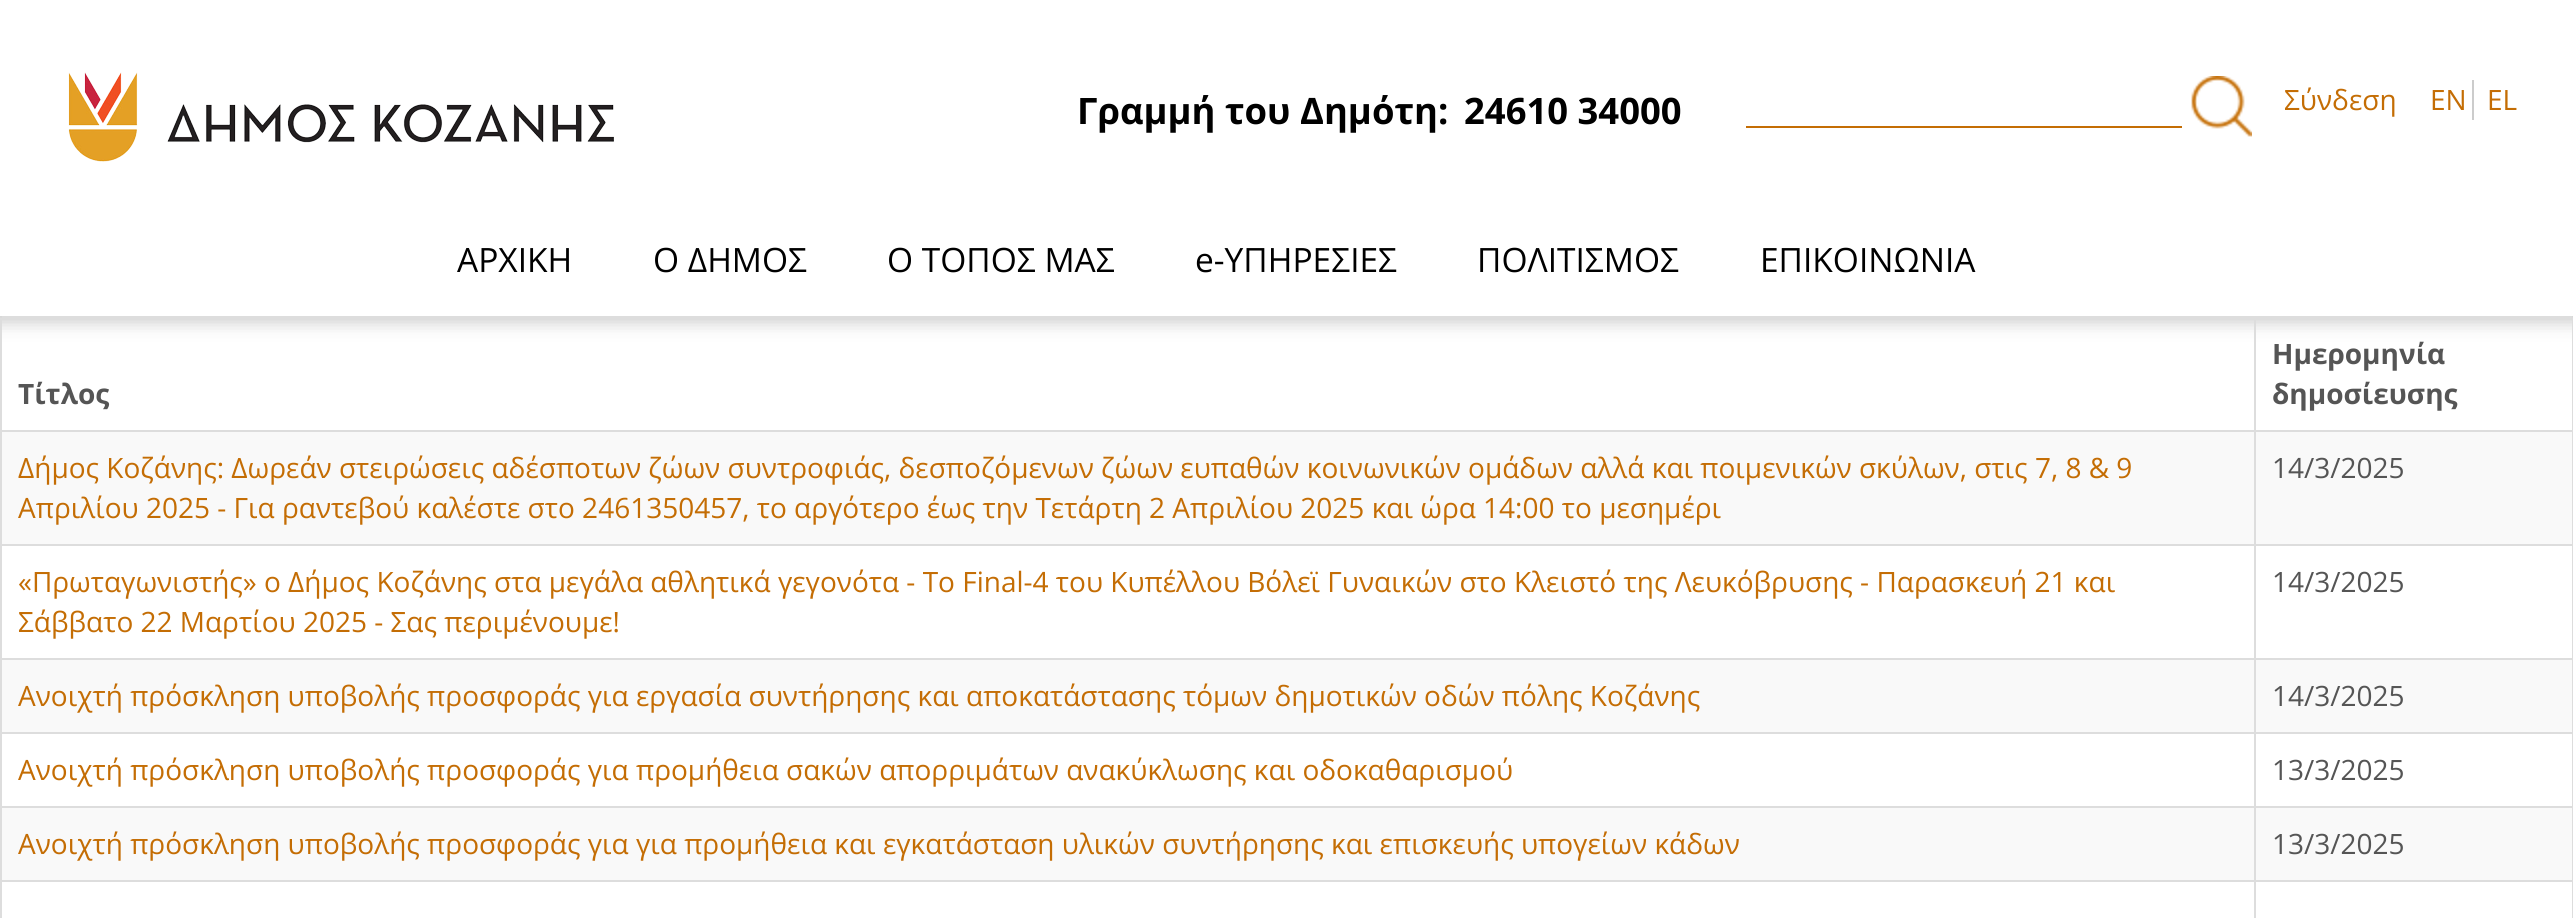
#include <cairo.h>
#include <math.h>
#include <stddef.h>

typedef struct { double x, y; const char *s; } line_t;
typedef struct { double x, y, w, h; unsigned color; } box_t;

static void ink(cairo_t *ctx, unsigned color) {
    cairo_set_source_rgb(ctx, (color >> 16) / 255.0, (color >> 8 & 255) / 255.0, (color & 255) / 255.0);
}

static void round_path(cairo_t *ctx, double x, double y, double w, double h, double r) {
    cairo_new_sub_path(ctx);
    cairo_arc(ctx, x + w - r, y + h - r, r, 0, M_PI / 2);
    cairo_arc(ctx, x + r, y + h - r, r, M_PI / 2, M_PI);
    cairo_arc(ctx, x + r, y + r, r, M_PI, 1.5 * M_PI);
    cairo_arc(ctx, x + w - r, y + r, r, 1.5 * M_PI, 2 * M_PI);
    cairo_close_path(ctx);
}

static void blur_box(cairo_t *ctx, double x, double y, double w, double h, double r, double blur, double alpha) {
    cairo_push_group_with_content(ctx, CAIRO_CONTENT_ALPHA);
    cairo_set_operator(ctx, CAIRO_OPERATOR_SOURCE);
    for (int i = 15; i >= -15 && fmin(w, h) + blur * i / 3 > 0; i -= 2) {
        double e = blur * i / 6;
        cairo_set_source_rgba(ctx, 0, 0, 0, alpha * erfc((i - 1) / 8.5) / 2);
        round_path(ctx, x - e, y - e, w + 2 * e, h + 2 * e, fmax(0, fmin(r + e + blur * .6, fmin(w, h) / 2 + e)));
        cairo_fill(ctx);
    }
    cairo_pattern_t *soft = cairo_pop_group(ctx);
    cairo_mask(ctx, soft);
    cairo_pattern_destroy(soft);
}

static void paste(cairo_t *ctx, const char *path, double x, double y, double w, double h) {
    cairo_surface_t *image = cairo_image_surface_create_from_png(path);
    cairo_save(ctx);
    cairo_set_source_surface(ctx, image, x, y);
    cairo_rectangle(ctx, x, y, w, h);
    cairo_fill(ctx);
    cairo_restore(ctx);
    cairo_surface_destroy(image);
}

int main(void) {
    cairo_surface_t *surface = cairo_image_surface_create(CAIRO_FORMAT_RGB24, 2573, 918);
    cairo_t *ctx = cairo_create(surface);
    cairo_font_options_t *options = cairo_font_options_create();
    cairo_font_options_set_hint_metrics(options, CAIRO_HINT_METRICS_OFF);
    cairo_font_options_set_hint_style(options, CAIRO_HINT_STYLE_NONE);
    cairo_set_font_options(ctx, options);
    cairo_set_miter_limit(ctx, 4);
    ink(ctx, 0xFFFFFF);
    cairo_paint(ctx);
    ink(ctx, 0x292929);
    blur_box(ctx, -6, -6, 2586, 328, 0, 9, 0.25);
    ink(ctx, 0xFFFFFF);
    cairo_rectangle(ctx, 0, 0, 2573, 316);
    cairo_fill(ctx);
    paste(ctx, "media/1.png", 68, 72, 546, 90);
    cairo_select_font_face(ctx, "Open Sans", CAIRO_FONT_SLANT_NORMAL, CAIRO_FONT_WEIGHT_BOLD);
    cairo_set_font_size(ctx, 36.4);
    ink(ctx, 0x000000);
    cairo_move_to(ctx, 1077, 124);
    cairo_show_text(ctx, "Γραμμή του Δημότη:");
    cairo_move_to(ctx, 1464, 124);
    cairo_show_text(ctx, "24610 34000");
    ink(ctx, 0xC46D04);
    cairo_rectangle(ctx, 1746, 126, 436, 2);
    cairo_fill(ctx);
    paste(ctx, "media/2.png", 2191, 76, 61, 61);
    cairo_select_font_face(ctx, "Open Sans", CAIRO_FONT_SLANT_NORMAL, CAIRO_FONT_WEIGHT_NORMAL);
    cairo_set_font_size(ctx, 28);
    cairo_move_to(ctx, 2284, 110);
    cairo_show_text(ctx, "Σύνδεση");
    ink(ctx, 0xCCCCCC);
    cairo_rectangle(ctx, 2472, 80, 2, 40);
    cairo_fill(ctx);
    ink(ctx, 0xC46D04);
    cairo_move_to(ctx, 2430, 110);
    cairo_show_text(ctx, "EN");
    cairo_move_to(ctx, 2487, 110);
    cairo_show_text(ctx, "EL");
    cairo_set_font_size(ctx, 33.5);
    ink(ctx, 0x000000);
    {
        static const line_t items[] = {
            {457, 272, "ΑΡΧΙΚΗ"},
            {653, 272, "Ο ΔΗΜΟΣ"},
            {887, 272, "Ο ΤΟΠΟΣ ΜΑΣ"},
            {1195, 272, "e-ΥΠΗΡΕΣΙΕΣ"},
            {1477, 272, "ΠΟΛΙΤΙΣΜΟΣ"},
            {1760, 272, "ΕΠΙΚΟΙΝΩΝΙΑ"},
        };
        for (size_t i = 0; i < sizeof items / sizeof *items; i++) {
            cairo_move_to(ctx, items[i].x, items[i].y);
            cairo_show_text(ctx, items[i].s);
        }
    }
    {
        static const box_t items[] = {
            {2, 316, 2570, 2, 0xDDDDDD},
            {2572, 318, 1, 600, 0xDDDDDD},
            {0, 320, 2, 110, 0xDDDDDD},
        };
        for (size_t i = 0; i < sizeof items / sizeof *items; i++) {
            ink(ctx, items[i].color);
            cairo_rectangle(ctx, items[i].x, items[i].y, items[i].w, items[i].h);
            cairo_fill(ctx);
        }
    }
    cairo_select_font_face(ctx, "Open Sans", CAIRO_FONT_SLANT_NORMAL, CAIRO_FONT_WEIGHT_BOLD);
    cairo_set_font_size(ctx, 28);
    ink(ctx, 0x555555);
    cairo_move_to(ctx, 18, 404);
    cairo_show_text(ctx, "Τίτλος");
    ink(ctx, 0xDDDDDD);
    cairo_rectangle(ctx, 2254, 318, 2, 112);
    cairo_fill(ctx);
    ink(ctx, 0x555555);
    cairo_move_to(ctx, 2272, 364);
    cairo_show_text(ctx, "Hμερομηνία");
    cairo_move_to(ctx, 2272, 404);
    cairo_show_text(ctx, "δημοσίευσης");
    {
        static const box_t items[] = {
            {2, 432, 2252, 112, 0xF9F9F9},
            {0, 430, 2572, 2, 0xDDDDDD},
            {0, 430, 2, 114, 0xDDDDDD},
        };
        for (size_t i = 0; i < sizeof items / sizeof *items; i++) {
            ink(ctx, items[i].color);
            cairo_rectangle(ctx, items[i].x, items[i].y, items[i].w, items[i].h);
            cairo_fill(ctx);
        }
    }
    cairo_select_font_face(ctx, "Open Sans", CAIRO_FONT_SLANT_NORMAL, CAIRO_FONT_WEIGHT_NORMAL);
    ink(ctx, 0xC46D04);
    cairo_move_to(ctx, 18, 478);
    cairo_show_text(ctx, "Δήμος Κοζάνης: Δωρεάν στειρώσεις αδέσποτων ζώων συντροφιάς, δεσποζόμενων ζώων ευπαθών κοινωνικών ομάδων αλλά και ποιμενικών σκύλων, στις 7, 8 & 9");
    cairo_move_to(ctx, 18, 518);
    cairo_show_text(ctx, "Απριλίου 2025 - Για ραντεβού καλέστε στο 2461350457, το αργότερο έως την Τετάρτη 2 Απριλίου 2025 και ώρα 14:00 το μεσημέρι");
    ink(ctx, 0xF9F9F9);
    cairo_rectangle(ctx, 2256, 432, 316, 112);
    cairo_fill(ctx);
    ink(ctx, 0xDDDDDD);
    cairo_rectangle(ctx, 2254, 430, 2, 114);
    cairo_fill(ctx);
    ink(ctx, 0x555555);
    cairo_move_to(ctx, 2272, 478);
    cairo_show_text(ctx, "14/3/2025");
    ink(ctx, 0xDDDDDD);
    cairo_rectangle(ctx, 0, 544, 2572, 2);
    cairo_fill(ctx);
    cairo_rectangle(ctx, 0, 544, 2, 114);
    cairo_fill(ctx);
    ink(ctx, 0xC46D04);
    cairo_move_to(ctx, 18, 592);
    cairo_show_text(ctx, "«Πρωταγωνιστής» ο Δήμος Κοζάνης στα μεγάλα αθλητικά γεγονότα - Tο Final-4 του Κυπέλλου Βόλεϊ Γυναικών στο Κλειστό της Λευκόβρυσης - Παρασκευή 21 και");
    cairo_move_to(ctx, 18, 632);
    cairo_show_text(ctx, "Σάββατο 22 Μαρτίου 2025 - Σας περιμένουμε!");
    ink(ctx, 0xDDDDDD);
    cairo_rectangle(ctx, 2254, 544, 2, 114);
    cairo_fill(ctx);
    ink(ctx, 0x555555);
    cairo_move_to(ctx, 2272, 592);
    cairo_show_text(ctx, "14/3/2025");
    {
        static const box_t items[] = {
            {2, 660, 2252, 72, 0xF9F9F9},
            {0, 658, 2572, 2, 0xDDDDDD},
            {0, 658, 2, 74, 0xDDDDDD},
        };
        for (size_t i = 0; i < sizeof items / sizeof *items; i++) {
            ink(ctx, items[i].color);
            cairo_rectangle(ctx, items[i].x, items[i].y, items[i].w, items[i].h);
            cairo_fill(ctx);
        }
    }
    ink(ctx, 0xC46D04);
    cairo_move_to(ctx, 18, 706);
    cairo_show_text(ctx, "Ανοιχτή πρόσκληση υποβολής προσφοράς για εργασία συντήρησης και αποκατάστασης τόμων δημοτικών οδών πόλης Κοζάνης");
    ink(ctx, 0xF9F9F9);
    cairo_rectangle(ctx, 2256, 660, 316, 72);
    cairo_fill(ctx);
    ink(ctx, 0xDDDDDD);
    cairo_rectangle(ctx, 2254, 658, 2, 74);
    cairo_fill(ctx);
    ink(ctx, 0x555555);
    cairo_move_to(ctx, 2272, 706);
    cairo_show_text(ctx, "14/3/2025");
    ink(ctx, 0xDDDDDD);
    cairo_rectangle(ctx, 0, 732, 2572, 2);
    cairo_fill(ctx);
    cairo_rectangle(ctx, 0, 732, 2, 74);
    cairo_fill(ctx);
    ink(ctx, 0xC46D04);
    cairo_move_to(ctx, 18, 780);
    cairo_show_text(ctx, "Ανοιχτή πρόσκληση υποβολής προσφοράς για προμήθεια σακών απορριμάτων ανακύκλωσης και οδοκαθαρισμού");
    ink(ctx, 0xDDDDDD);
    cairo_rectangle(ctx, 2254, 732, 2, 74);
    cairo_fill(ctx);
    ink(ctx, 0x555555);
    cairo_move_to(ctx, 2272, 780);
    cairo_show_text(ctx, "13/3/2025");
    {
        static const box_t items[] = {
            {2, 808, 2252, 72, 0xF9F9F9},
            {0, 806, 2572, 2, 0xDDDDDD},
            {0, 806, 2, 74, 0xDDDDDD},
        };
        for (size_t i = 0; i < sizeof items / sizeof *items; i++) {
            ink(ctx, items[i].color);
            cairo_rectangle(ctx, items[i].x, items[i].y, items[i].w, items[i].h);
            cairo_fill(ctx);
        }
    }
    ink(ctx, 0xC46D04);
    cairo_move_to(ctx, 18, 854);
    cairo_show_text(ctx, "Ανοιχτή πρόσκληση υποβολής προσφοράς για για προμήθεια και εγκατάσταση υλικών συντήρησης και επισκευής υπογείων κάδων");
    ink(ctx, 0xF9F9F9);
    cairo_rectangle(ctx, 2256, 808, 316, 72);
    cairo_fill(ctx);
    ink(ctx, 0xDDDDDD);
    cairo_rectangle(ctx, 2254, 806, 2, 74);
    cairo_fill(ctx);
    ink(ctx, 0x555555);
    cairo_move_to(ctx, 2272, 854);
    cairo_show_text(ctx, "13/3/2025");
    {
        static const box_t items[] = {
            {0, 880, 2572, 2, 0xDDDDDD},
            {0, 880, 2, 38, 0xDDDDDD},
            {2254, 880, 2, 38, 0xDDDDDD},
        };
        for (size_t i = 0; i < sizeof items / sizeof *items; i++) {
            ink(ctx, items[i].color);
            cairo_rectangle(ctx, items[i].x, items[i].y, items[i].w, items[i].h);
            cairo_fill(ctx);
        }
    }
    cairo_surface_write_to_png(surface, "image.png");
    cairo_font_options_destroy(options);
    cairo_destroy(ctx);
    cairo_surface_destroy(surface);
    return 0;
}
